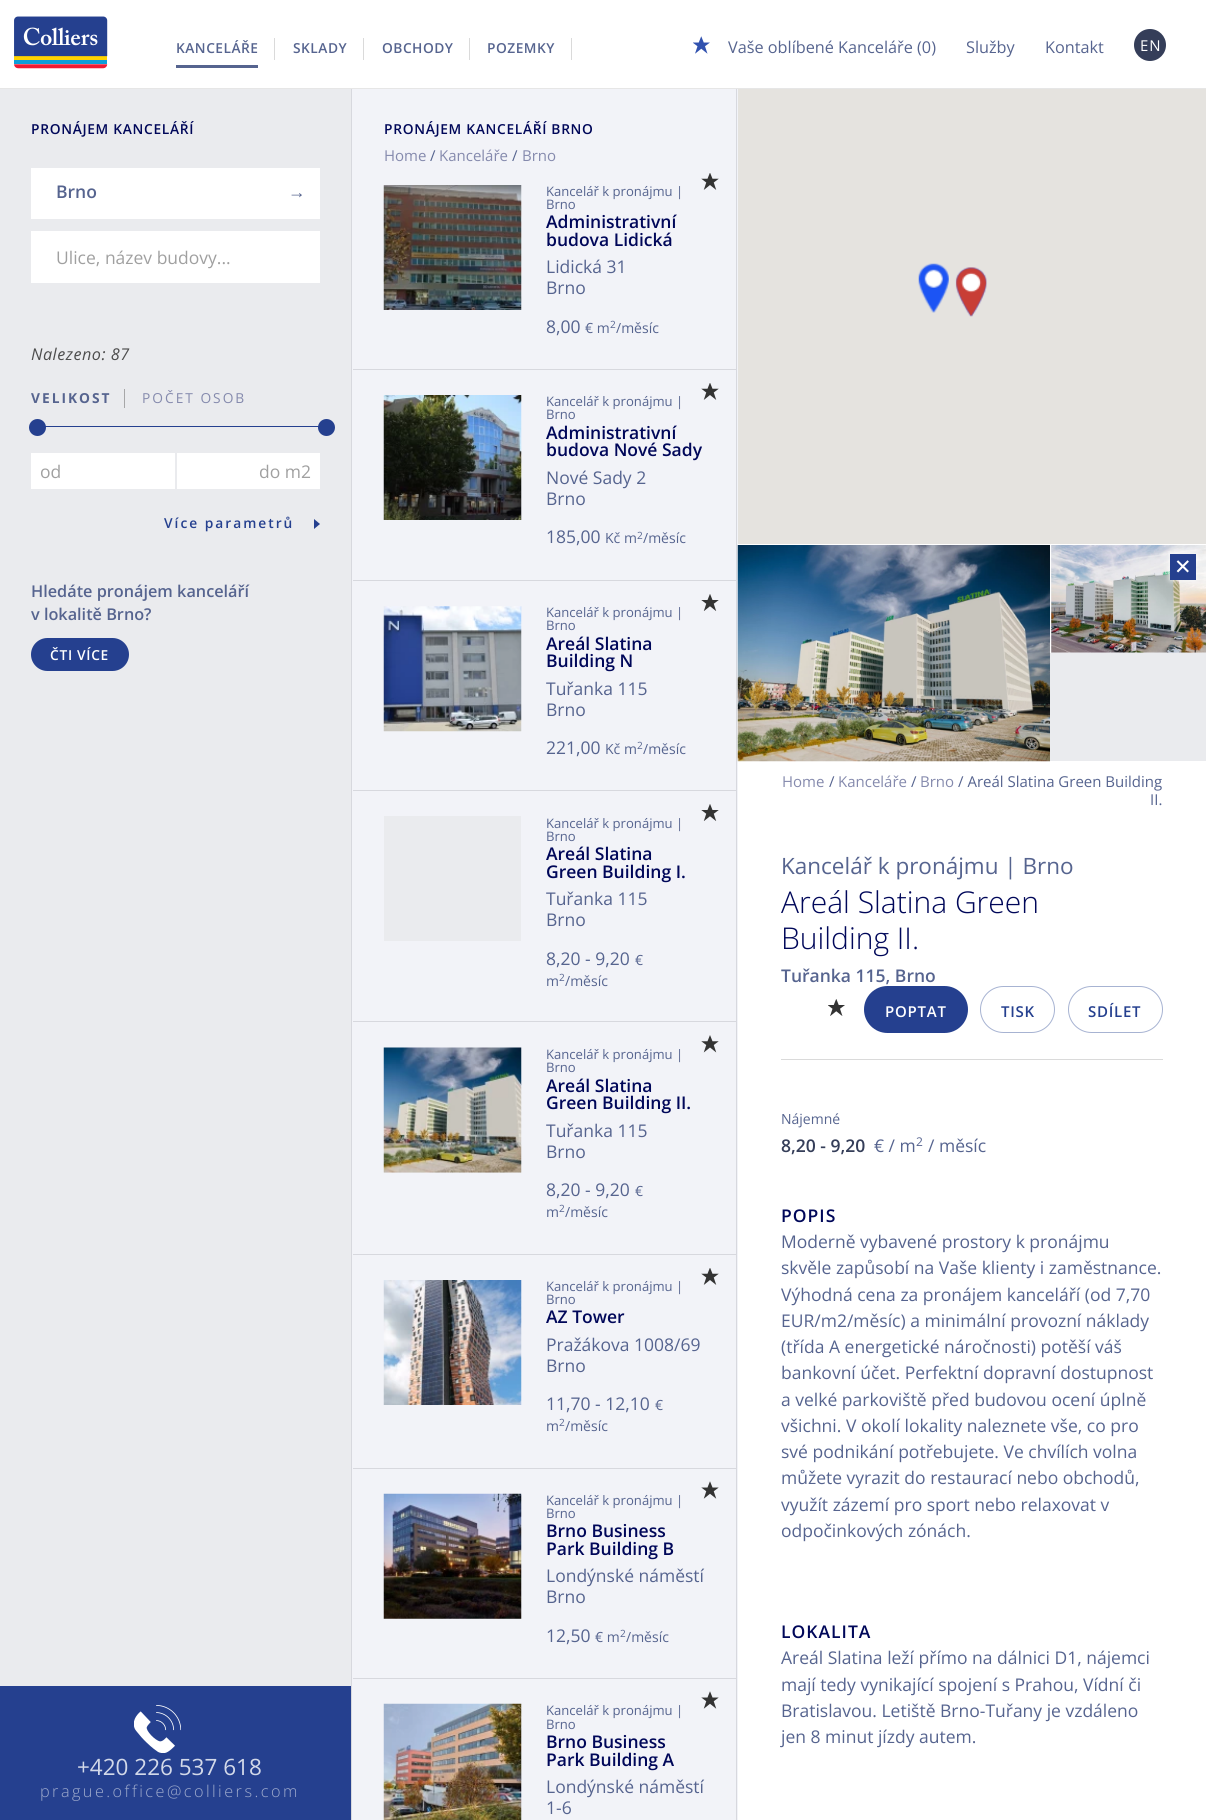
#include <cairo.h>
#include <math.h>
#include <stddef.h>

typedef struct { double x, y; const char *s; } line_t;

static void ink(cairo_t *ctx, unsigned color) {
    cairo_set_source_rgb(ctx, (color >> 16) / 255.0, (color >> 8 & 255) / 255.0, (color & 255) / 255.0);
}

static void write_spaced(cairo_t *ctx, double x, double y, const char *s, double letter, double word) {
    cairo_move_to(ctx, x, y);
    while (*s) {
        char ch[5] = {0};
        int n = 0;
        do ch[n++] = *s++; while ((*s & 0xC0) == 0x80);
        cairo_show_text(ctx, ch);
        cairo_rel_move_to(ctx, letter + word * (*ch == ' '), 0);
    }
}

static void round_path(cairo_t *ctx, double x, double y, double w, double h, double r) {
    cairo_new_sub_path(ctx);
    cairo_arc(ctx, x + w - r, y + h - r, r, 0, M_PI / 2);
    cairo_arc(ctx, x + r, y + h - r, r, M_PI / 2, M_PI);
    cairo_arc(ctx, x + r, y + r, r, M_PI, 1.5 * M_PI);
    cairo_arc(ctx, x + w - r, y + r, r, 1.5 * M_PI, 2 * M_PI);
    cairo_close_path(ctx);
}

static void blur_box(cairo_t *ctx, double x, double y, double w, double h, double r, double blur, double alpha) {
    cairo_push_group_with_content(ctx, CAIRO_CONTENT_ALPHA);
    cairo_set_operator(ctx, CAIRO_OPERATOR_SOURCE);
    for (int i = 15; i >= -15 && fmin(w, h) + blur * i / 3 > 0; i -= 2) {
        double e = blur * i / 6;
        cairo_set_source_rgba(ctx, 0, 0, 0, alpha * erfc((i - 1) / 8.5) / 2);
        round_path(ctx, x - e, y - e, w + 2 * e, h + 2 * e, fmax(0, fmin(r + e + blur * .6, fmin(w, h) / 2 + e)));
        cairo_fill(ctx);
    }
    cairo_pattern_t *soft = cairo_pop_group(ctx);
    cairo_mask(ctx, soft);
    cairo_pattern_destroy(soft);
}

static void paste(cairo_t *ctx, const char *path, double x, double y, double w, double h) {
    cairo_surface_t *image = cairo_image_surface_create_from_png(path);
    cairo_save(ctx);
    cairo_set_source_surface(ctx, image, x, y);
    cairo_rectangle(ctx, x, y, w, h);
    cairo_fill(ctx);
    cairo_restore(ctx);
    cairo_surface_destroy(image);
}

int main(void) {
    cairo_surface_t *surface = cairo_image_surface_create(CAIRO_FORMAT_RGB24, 1206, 1820);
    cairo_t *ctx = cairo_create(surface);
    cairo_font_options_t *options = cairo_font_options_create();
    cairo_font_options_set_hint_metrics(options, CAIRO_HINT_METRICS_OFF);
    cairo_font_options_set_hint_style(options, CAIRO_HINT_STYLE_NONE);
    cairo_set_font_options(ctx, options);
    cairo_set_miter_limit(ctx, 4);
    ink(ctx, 0xF2F3F8);
    cairo_paint(ctx);
    ink(ctx, 0xFFFFFF);
    cairo_rectangle(ctx, 0, 0, 1206, 88);
    cairo_fill(ctx);
    ink(ctx, 0xE6E6E6);
    cairo_rectangle(ctx, 0, 88, 1206, 1);
    cairo_fill(ctx);
    paste(ctx, "media/1.png", 14, 16, 94, 53);
    ink(ctx, 0x56648F);
    cairo_rectangle(ctx, 176, 65, 82, 3);
    cairo_fill(ctx);
    cairo_select_font_face(ctx, "Open Sans SemiBold", CAIRO_FONT_SLANT_NORMAL, CAIRO_FONT_WEIGHT_NORMAL);
    cairo_set_font_size(ctx, 13.75);
    write_spaced(ctx, 176, 53, "KANCELÁŘE", 0.5, 0);
    ink(ctx, 0xDADADA);
    cairo_rectangle(ctx, 274, 38, 1, 22);
    cairo_fill(ctx);
    ink(ctx, 0x56648F);
    write_spaced(ctx, 293, 53, "SKLADY", 0.5, 0);
    ink(ctx, 0xDADADA);
    cairo_rectangle(ctx, 363, 38, 1, 22);
    cairo_fill(ctx);
    ink(ctx, 0x56648F);
    write_spaced(ctx, 382, 53, "OBCHODY", 0.5, 0);
    ink(ctx, 0xDADADA);
    cairo_rectangle(ctx, 469, 38, 1, 22);
    cairo_fill(ctx);
    ink(ctx, 0x56648F);
    write_spaced(ctx, 487, 53, "POZEMKY", 0.5, 0);
    ink(ctx, 0xDADADA);
    cairo_rectangle(ctx, 571, 38, 1, 22);
    cairo_fill(ctx);
    paste(ctx, "media/2.png", 693, 36, 17, 18);
    cairo_select_font_face(ctx, "Open Sans", CAIRO_FONT_SLANT_NORMAL, CAIRO_FONT_WEIGHT_NORMAL);
    cairo_set_font_size(ctx, 16.25);
    ink(ctx, 0x56648F);
    {
        static const line_t items[] = {
            {728, 53, "Vaše oblíbené Kanceláře (0)"},
            {966, 53, "Služby"},
            {1045, 53, "Kontakt"},
        };
        for (size_t i = 0; i < sizeof items / sizeof *items; i++) {
            cairo_move_to(ctx, items[i].x, items[i].y);
            cairo_show_text(ctx, items[i].s);
        }
    }
    ink(ctx, 0x353E59);
    cairo_new_path(ctx);
    cairo_arc(ctx, 1150, 45, 16, 0, 2 * M_PI);
    cairo_fill(ctx);
    cairo_set_font_size(ctx, 15);
    ink(ctx, 0xFFFFFF);
    write_spaced(ctx, 1140, 51, "EN", 1, 0);
    ink(ctx, 0xEAEBEE);
    cairo_rectangle(ctx, 0, 89, 351, 1597);
    cairo_fill(ctx);
    cairo_select_font_face(ctx, "Open Sans SemiBold", CAIRO_FONT_SLANT_NORMAL, CAIRO_FONT_WEIGHT_NORMAL);
    cairo_set_font_size(ctx, 13.75);
    ink(ctx, 0x000759);
    write_spaced(ctx, 31, 134, "PRONÁJEM KANCELÁŘÍ", 0.7, 0);
    ink(ctx, 0xFFFFFF);
    cairo_rectangle(ctx, 31, 168, 289, 51);
    cairo_fill(ctx);
    cairo_set_font_size(ctx, 17.5);
    ink(ctx, 0x56648F);
    cairo_move_to(ctx, 56, 198);
    cairo_show_text(ctx, "Brno");
    cairo_select_font_face(ctx, "Liberation Sans", CAIRO_FONT_SLANT_NORMAL, CAIRO_FONT_WEIGHT_BOLD);
    cairo_move_to(ctx, 288, 198);
    cairo_show_text(ctx, "→");
    ink(ctx, 0xFFFFFF);
    cairo_rectangle(ctx, 31, 231, 289, 52);
    cairo_fill(ctx);
    cairo_select_font_face(ctx, "Open Sans", CAIRO_FONT_SLANT_NORMAL, CAIRO_FONT_WEIGHT_NORMAL);
    ink(ctx, 0xA0A0A0);
    cairo_move_to(ctx, 56, 264);
    cairo_show_text(ctx, "Ulice, název budovy...");
    cairo_select_font_face(ctx, "Open Sans", CAIRO_FONT_SLANT_ITALIC, CAIRO_FONT_WEIGHT_NORMAL);
    cairo_set_font_size(ctx, 16.25);
    ink(ctx, 0x4D4D4D);
    write_spaced(ctx, 31, 360, "Nalezeno: 87", 0.5, 0);
    cairo_select_font_face(ctx, "Open Sans", CAIRO_FONT_SLANT_NORMAL, CAIRO_FONT_WEIGHT_BOLD);
    cairo_set_font_size(ctx, 13.75);
    ink(ctx, 0x56648F);
    write_spaced(ctx, 31, 403, "VELIKOST", 2, 0);
    cairo_select_font_face(ctx, "Open Sans", CAIRO_FONT_SLANT_NORMAL, CAIRO_FONT_WEIGHT_NORMAL);
    ink(ctx, 0x858AAD);
    write_spaced(ctx, 142, 403, "POČET OSOB", 2, 0);
    ink(ctx, 0xA7A7A8);
    cairo_rectangle(ctx, 124, 389, 1, 19);
    cairo_fill(ctx);
    ink(ctx, 0x25408F);
    cairo_rectangle(ctx, 45, 426, 275, 1);
    cairo_fill(ctx);
    cairo_arc(ctx, 37.5, 427.5, 7, 0, 2 * M_PI);
    cairo_fill_preserve(ctx);
    cairo_set_line_width(ctx, 3);
    cairo_stroke(ctx);
    cairo_arc(ctx, 326.5, 427.5, 7, 0, 2 * M_PI);
    cairo_fill_preserve(ctx);
    cairo_stroke(ctx);
    ink(ctx, 0xFFFFFF);
    cairo_rectangle(ctx, 31, 453, 144, 36);
    cairo_fill(ctx);
    cairo_set_font_size(ctx, 17.5);
    ink(ctx, 0xA0A0A0);
    cairo_move_to(ctx, 40, 478);
    cairo_show_text(ctx, "od");
    ink(ctx, 0xFFFFFF);
    cairo_rectangle(ctx, 177, 453, 143, 36);
    cairo_fill(ctx);
    ink(ctx, 0xA0A0A0);
    cairo_move_to(ctx, 259, 478);
    cairo_show_text(ctx, "do m2");
    cairo_select_font_face(ctx, "Open Sans SemiBold", CAIRO_FONT_SLANT_NORMAL, CAIRO_FONT_WEIGHT_NORMAL);
    cairo_set_font_size(ctx, 13.75);
    ink(ctx, 0x25408F);
    write_spaced(ctx, 164, 528, "Více parametrů", 2, 0);
    cairo_new_path(ctx);
    cairo_move_to(ctx, 314, 529);
    cairo_line_to(ctx, 314, 519);
    cairo_line_to(ctx, 320, 524);
    cairo_close_path(ctx);
    cairo_fill(ctx);
    cairo_set_font_size(ctx, 16.25);
    ink(ctx, 0x56648F);
    cairo_move_to(ctx, 31, 597);
    cairo_show_text(ctx, "Hledáte pronájem kanceláří");
    cairo_move_to(ctx, 31, 620);
    cairo_show_text(ctx, "v lokalitě Brno?");
    ink(ctx, 0x25408F);
    round_path(ctx, 31, 638, 98, 33, 16.5);
    cairo_fill(ctx);
    cairo_set_font_size(ctx, 13.75);
    ink(ctx, 0xFFFFFF);
    write_spaced(ctx, 50, 660, "ČTI VÍCE", 0.7, 0);
    ink(ctx, 0x25408F);
    cairo_rectangle(ctx, 0, 1686, 351, 134);
    cairo_fill(ctx);
    paste(ctx, "media/3.png", 134, 1705, 47, 48);
    cairo_select_font_face(ctx, "Open Sans", CAIRO_FONT_SLANT_NORMAL, CAIRO_FONT_WEIGHT_NORMAL);
    cairo_set_font_size(ctx, 22.5);
    ink(ctx, 0xD3D9E9);
    cairo_move_to(ctx, 77, 1775);
    cairo_show_text(ctx, "+420 226 537 618");
    cairo_select_font_face(ctx, "Open Sans Light", CAIRO_FONT_SLANT_NORMAL, CAIRO_FONT_WEIGHT_NORMAL);
    cairo_set_font_size(ctx, 16.25);
    ink(ctx, 0x9FABCD);
    write_spaced(ctx, 40, 1797, "prague.office@colliers.com", 2.45, 0);
    ink(ctx, 0xD7D8DE);
    cairo_rectangle(ctx, 736, 89, 1, 1731);
    cairo_fill(ctx);
    cairo_rectangle(ctx, 351, 89, 1, 1731);
    cairo_fill(ctx);
    cairo_select_font_face(ctx, "Open Sans SemiBold", CAIRO_FONT_SLANT_NORMAL, CAIRO_FONT_WEIGHT_NORMAL);
    cairo_set_font_size(ctx, 13.75);
    ink(ctx, 0x000759);
    write_spaced(ctx, 384, 134, "PRONÁJEM KANCELÁŘÍ BRNO", 0.7, 0);
    cairo_select_font_face(ctx, "Open Sans", CAIRO_FONT_SLANT_NORMAL, CAIRO_FONT_WEIGHT_NORMAL);
    cairo_set_font_size(ctx, 15);
    ink(ctx, 0x858AAD);
    cairo_move_to(ctx, 384, 161);
    cairo_show_text(ctx, "Home");
    ink(ctx, 0x56648F);
    cairo_move_to(ctx, 430, 161);
    cairo_show_text(ctx, "/");
    ink(ctx, 0x858AAD);
    cairo_move_to(ctx, 439, 161);
    cairo_show_text(ctx, "Kanceláře");
    ink(ctx, 0x56648F);
    cairo_move_to(ctx, 512, 161);
    cairo_show_text(ctx, "/");
    ink(ctx, 0x858AAD);
    cairo_move_to(ctx, 522, 161);
    cairo_show_text(ctx, "Brno");
    ink(ctx, 0xD7D8DE);
    cairo_rectangle(ctx, 353, 369, 383, 1);
    cairo_fill(ctx);
    paste(ctx, "media/4.png", 383, 185, 139, 125);
    paste(ctx, "media/5.png", 701, 173, 18, 17);
    cairo_set_font_size(ctx, 13.1);
    ink(ctx, 0x56648F);
    cairo_move_to(ctx, 546, 196);
    cairo_show_text(ctx, "Kancelář k pronájmu |");
    cairo_move_to(ctx, 546, 209);
    cairo_show_text(ctx, "Brno");
    cairo_select_font_face(ctx, "Open Sans SemiBold", CAIRO_FONT_SLANT_NORMAL, CAIRO_FONT_WEIGHT_NORMAL);
    cairo_set_font_size(ctx, 17.5);
    ink(ctx, 0x000759);
    cairo_move_to(ctx, 546, 228);
    cairo_show_text(ctx, "Administrativní");
    cairo_move_to(ctx, 546, 246);
    cairo_show_text(ctx, "budova Lidická");
    cairo_select_font_face(ctx, "Open Sans", CAIRO_FONT_SLANT_NORMAL, CAIRO_FONT_WEIGHT_NORMAL);
    ink(ctx, 0x56648F);
    {
        static const line_t items[] = {
            {546, 273, "Lidická 31"},
            {546, 294, "Brno"},
            {546, 333, "8,00"},
        };
        for (size_t i = 0; i < sizeof items / sizeof *items; i++) {
            cairo_move_to(ctx, items[i].x, items[i].y);
            cairo_show_text(ctx, items[i].s);
        }
    }
    cairo_set_font_size(ctx, 14);
    cairo_move_to(ctx, 585, 333);
    cairo_show_text(ctx, "€ m");
    cairo_move_to(ctx, 616, 333);
    cairo_show_text(ctx, "/měsíc");
    cairo_set_font_size(ctx, 10);
    cairo_move_to(ctx, 610, 328);
    cairo_show_text(ctx, "2");
    ink(ctx, 0xD7D8DE);
    cairo_rectangle(ctx, 353, 580, 383, 1);
    cairo_fill(ctx);
    paste(ctx, "media/6.png", 383, 395, 139, 125);
    paste(ctx, "media/5.png", 701, 383, 18, 17);
    cairo_set_font_size(ctx, 13.1);
    ink(ctx, 0x56648F);
    cairo_move_to(ctx, 546, 406);
    cairo_show_text(ctx, "Kancelář k pronájmu |");
    cairo_move_to(ctx, 546, 419);
    cairo_show_text(ctx, "Brno");
    cairo_select_font_face(ctx, "Open Sans SemiBold", CAIRO_FONT_SLANT_NORMAL, CAIRO_FONT_WEIGHT_NORMAL);
    cairo_set_font_size(ctx, 17.5);
    ink(ctx, 0x000759);
    cairo_move_to(ctx, 546, 439);
    cairo_show_text(ctx, "Administrativní");
    cairo_move_to(ctx, 546, 456);
    cairo_show_text(ctx, "budova Nové Sady");
    cairo_select_font_face(ctx, "Open Sans", CAIRO_FONT_SLANT_NORMAL, CAIRO_FONT_WEIGHT_NORMAL);
    ink(ctx, 0x56648F);
    {
        static const line_t items[] = {
            {546, 484, "Nové Sady 2"},
            {546, 505, "Brno"},
            {546, 543, "185,00"},
        };
        for (size_t i = 0; i < sizeof items / sizeof *items; i++) {
            cairo_move_to(ctx, items[i].x, items[i].y);
            cairo_show_text(ctx, items[i].s);
        }
    }
    cairo_set_font_size(ctx, 14);
    cairo_move_to(ctx, 605, 543);
    cairo_show_text(ctx, "Kč m");
    cairo_set_font_size(ctx, 10);
    cairo_move_to(ctx, 637, 539);
    cairo_show_text(ctx, "2");
    cairo_set_font_size(ctx, 14);
    cairo_move_to(ctx, 643, 543);
    cairo_show_text(ctx, "/měsíc");
    ink(ctx, 0xD7D8DE);
    cairo_rectangle(ctx, 353, 790, 383, 1);
    cairo_fill(ctx);
    paste(ctx, "media/7.png", 383, 606, 139, 126);
    paste(ctx, "media/8.png", 701, 594, 18, 17);
    cairo_set_font_size(ctx, 13.1);
    ink(ctx, 0x56648F);
    cairo_move_to(ctx, 546, 617);
    cairo_show_text(ctx, "Kancelář k pronájmu |");
    cairo_move_to(ctx, 546, 630);
    cairo_show_text(ctx, "Brno");
    cairo_select_font_face(ctx, "Open Sans SemiBold", CAIRO_FONT_SLANT_NORMAL, CAIRO_FONT_WEIGHT_NORMAL);
    cairo_set_font_size(ctx, 17.5);
    ink(ctx, 0x000759);
    cairo_move_to(ctx, 546, 650);
    cairo_show_text(ctx, "Areál Slatina");
    cairo_move_to(ctx, 546, 667);
    cairo_show_text(ctx, "Building N");
    cairo_select_font_face(ctx, "Open Sans", CAIRO_FONT_SLANT_NORMAL, CAIRO_FONT_WEIGHT_NORMAL);
    ink(ctx, 0x56648F);
    {
        static const line_t items[] = {
            {546, 695, "Tuřanka 115"},
            {546, 716, "Brno"},
            {546, 754, "221,00"},
        };
        for (size_t i = 0; i < sizeof items / sizeof *items; i++) {
            cairo_move_to(ctx, items[i].x, items[i].y);
            cairo_show_text(ctx, items[i].s);
        }
    }
    cairo_set_font_size(ctx, 14);
    cairo_move_to(ctx, 605, 754);
    cairo_show_text(ctx, "Kč m");
    cairo_set_font_size(ctx, 10);
    cairo_move_to(ctx, 637, 749);
    cairo_show_text(ctx, "2");
    cairo_set_font_size(ctx, 14);
    cairo_move_to(ctx, 643, 754);
    cairo_show_text(ctx, "/měsíc");
    ink(ctx, 0xD7D8DE);
    cairo_rectangle(ctx, 353, 1021, 383, 1);
    cairo_fill(ctx);
    ink(ctx, 0xEAEBEE);
    cairo_rectangle(ctx, 384, 816, 137, 125);
    cairo_fill(ctx);
    paste(ctx, "media/8.png", 701, 804, 18, 17);
    cairo_set_font_size(ctx, 13.1);
    ink(ctx, 0x56648F);
    cairo_move_to(ctx, 546, 828);
    cairo_show_text(ctx, "Kancelář k pronájmu |");
    cairo_move_to(ctx, 546, 841);
    cairo_show_text(ctx, "Brno");
    cairo_select_font_face(ctx, "Open Sans SemiBold", CAIRO_FONT_SLANT_NORMAL, CAIRO_FONT_WEIGHT_NORMAL);
    cairo_set_font_size(ctx, 17.5);
    ink(ctx, 0x000759);
    cairo_move_to(ctx, 546, 860);
    cairo_show_text(ctx, "Areál Slatina");
    cairo_move_to(ctx, 546, 878);
    cairo_show_text(ctx, "Green Building I.");
    cairo_select_font_face(ctx, "Open Sans", CAIRO_FONT_SLANT_NORMAL, CAIRO_FONT_WEIGHT_NORMAL);
    ink(ctx, 0x56648F);
    {
        static const line_t items[] = {
            {546, 905, "Tuřanka 115"},
            {546, 926, "Brno"},
            {546, 965, "8,20 - 9,20"},
        };
        for (size_t i = 0; i < sizeof items / sizeof *items; i++) {
            cairo_move_to(ctx, items[i].x, items[i].y);
            cairo_show_text(ctx, items[i].s);
        }
    }
    cairo_set_font_size(ctx, 14);
    {
        static const line_t items[] = {
            {635, 965, "€"},
            {546, 986, "m"},
            {565, 986, "/měsíc"},
        };
        for (size_t i = 0; i < sizeof items / sizeof *items; i++) {
            cairo_move_to(ctx, items[i].x, items[i].y);
            cairo_show_text(ctx, items[i].s);
        }
    }
    cairo_set_font_size(ctx, 10);
    cairo_move_to(ctx, 559, 981);
    cairo_show_text(ctx, "2");
    ink(ctx, 0xD7D8DE);
    cairo_rectangle(ctx, 353, 1254, 383, 1);
    cairo_fill(ctx);
    ink(ctx, 0xEAEBEE);
    cairo_rectangle(ctx, 384, 1172, 137, 1);
    cairo_fill(ctx);
    paste(ctx, "media/9.png", 383, 1047, 139, 126);
    paste(ctx, "media/10.png", 701, 1035, 18, 18);
    cairo_set_font_size(ctx, 13.1);
    ink(ctx, 0x56648F);
    cairo_move_to(ctx, 546, 1059);
    cairo_show_text(ctx, "Kancelář k pronájmu |");
    cairo_move_to(ctx, 546, 1072);
    cairo_show_text(ctx, "Brno");
    cairo_select_font_face(ctx, "Open Sans SemiBold", CAIRO_FONT_SLANT_NORMAL, CAIRO_FONT_WEIGHT_NORMAL);
    cairo_set_font_size(ctx, 17.5);
    ink(ctx, 0x000759);
    cairo_move_to(ctx, 546, 1092);
    cairo_show_text(ctx, "Areál Slatina");
    cairo_move_to(ctx, 546, 1109);
    cairo_show_text(ctx, "Green Building II.");
    cairo_select_font_face(ctx, "Open Sans", CAIRO_FONT_SLANT_NORMAL, CAIRO_FONT_WEIGHT_NORMAL);
    ink(ctx, 0x56648F);
    {
        static const line_t items[] = {
            {546, 1137, "Tuřanka 115"},
            {546, 1158, "Brno"},
            {546, 1196, "8,20 - 9,20"},
        };
        for (size_t i = 0; i < sizeof items / sizeof *items; i++) {
            cairo_move_to(ctx, items[i].x, items[i].y);
            cairo_show_text(ctx, items[i].s);
        }
    }
    cairo_set_font_size(ctx, 14);
    {
        static const line_t items[] = {
            {635, 1196, "€"},
            {546, 1217, "m"},
            {565, 1217, "/měsíc"},
        };
        for (size_t i = 0; i < sizeof items / sizeof *items; i++) {
            cairo_move_to(ctx, items[i].x, items[i].y);
            cairo_show_text(ctx, items[i].s);
        }
    }
    cairo_set_font_size(ctx, 10);
    cairo_move_to(ctx, 559, 1212);
    cairo_show_text(ctx, "2");
    ink(ctx, 0xD7D8DE);
    cairo_rectangle(ctx, 353, 1468, 383, 1);
    cairo_fill(ctx);
    paste(ctx, "media/11.png", 383, 1280, 139, 125);
    paste(ctx, "media/5.png", 701, 1268, 18, 17);
    cairo_set_font_size(ctx, 13.1);
    ink(ctx, 0x56648F);
    cairo_move_to(ctx, 546, 1291);
    cairo_show_text(ctx, "Kancelář k pronájmu |");
    cairo_move_to(ctx, 546, 1304);
    cairo_show_text(ctx, "Brno");
    cairo_select_font_face(ctx, "Open Sans SemiBold", CAIRO_FONT_SLANT_NORMAL, CAIRO_FONT_WEIGHT_NORMAL);
    cairo_set_font_size(ctx, 17.5);
    ink(ctx, 0x000759);
    cairo_move_to(ctx, 546, 1323);
    cairo_show_text(ctx, "AZ Tower");
    cairo_select_font_face(ctx, "Open Sans", CAIRO_FONT_SLANT_NORMAL, CAIRO_FONT_WEIGHT_NORMAL);
    ink(ctx, 0x56648F);
    {
        static const line_t items[] = {
            {546, 1351, "Pražákova 1008/69"},
            {546, 1372, "Brno"},
            {546, 1410, "11,70 - 12,10"},
        };
        for (size_t i = 0; i < sizeof items / sizeof *items; i++) {
            cairo_move_to(ctx, items[i].x, items[i].y);
            cairo_show_text(ctx, items[i].s);
        }
    }
    cairo_set_font_size(ctx, 14);
    {
        static const line_t items[] = {
            {655, 1410, "€"},
            {546, 1431, "m"},
            {565, 1431, "/měsíc"},
        };
        for (size_t i = 0; i < sizeof items / sizeof *items; i++) {
            cairo_move_to(ctx, items[i].x, items[i].y);
            cairo_show_text(ctx, items[i].s);
        }
    }
    cairo_set_font_size(ctx, 10);
    cairo_move_to(ctx, 559, 1426);
    cairo_show_text(ctx, "2");
    ink(ctx, 0xD7D8DE);
    cairo_rectangle(ctx, 353, 1678, 383, 1);
    cairo_fill(ctx);
    paste(ctx, "media/12.png", 383, 1493, 139, 126);
    paste(ctx, "media/13.png", 701, 1481, 18, 18);
    cairo_set_font_size(ctx, 13.1);
    ink(ctx, 0x56648F);
    cairo_move_to(ctx, 546, 1505);
    cairo_show_text(ctx, "Kancelář k pronájmu |");
    cairo_move_to(ctx, 546, 1518);
    cairo_show_text(ctx, "Brno");
    cairo_select_font_face(ctx, "Open Sans SemiBold", CAIRO_FONT_SLANT_NORMAL, CAIRO_FONT_WEIGHT_NORMAL);
    cairo_set_font_size(ctx, 17.5);
    ink(ctx, 0x000759);
    cairo_move_to(ctx, 546, 1537);
    cairo_show_text(ctx, "Brno Business");
    cairo_move_to(ctx, 546, 1555);
    cairo_show_text(ctx, "Park Building B");
    cairo_select_font_face(ctx, "Open Sans", CAIRO_FONT_SLANT_NORMAL, CAIRO_FONT_WEIGHT_NORMAL);
    ink(ctx, 0x56648F);
    {
        static const line_t items[] = {
            {546, 1582, "Londýnské náměstí"},
            {546, 1603, "Brno"},
            {546, 1642, "12,50"},
        };
        for (size_t i = 0; i < sizeof items / sizeof *items; i++) {
            cairo_move_to(ctx, items[i].x, items[i].y);
            cairo_show_text(ctx, items[i].s);
        }
    }
    cairo_set_font_size(ctx, 14);
    cairo_move_to(ctx, 595, 1642);
    cairo_show_text(ctx, "€ m");
    cairo_move_to(ctx, 626, 1642);
    cairo_show_text(ctx, "/měsíc");
    cairo_set_font_size(ctx, 10);
    cairo_move_to(ctx, 620, 1637);
    cairo_show_text(ctx, "2");
    paste(ctx, "media/14.png", 383, 1703, 139, 117);
    paste(ctx, "media/13.png", 701, 1691, 18, 18);
    cairo_set_font_size(ctx, 13.1);
    cairo_move_to(ctx, 546, 1715);
    cairo_show_text(ctx, "Kancelář k pronájmu |");
    cairo_move_to(ctx, 546, 1729);
    cairo_show_text(ctx, "Brno");
    cairo_select_font_face(ctx, "Open Sans SemiBold", CAIRO_FONT_SLANT_NORMAL, CAIRO_FONT_WEIGHT_NORMAL);
    cairo_set_font_size(ctx, 17.5);
    ink(ctx, 0x000759);
    cairo_move_to(ctx, 546, 1748);
    cairo_show_text(ctx, "Brno Business");
    cairo_move_to(ctx, 546, 1766);
    cairo_show_text(ctx, "Park Building A");
    cairo_select_font_face(ctx, "Open Sans", CAIRO_FONT_SLANT_NORMAL, CAIRO_FONT_WEIGHT_NORMAL);
    ink(ctx, 0x56648F);
    cairo_move_to(ctx, 546, 1793);
    cairo_show_text(ctx, "Londýnské náměstí");
    cairo_move_to(ctx, 546, 1814);
    cairo_show_text(ctx, "1-6");
    ink(ctx, 0xE5E3DF);
    cairo_rectangle(ctx, 738, 89, 468, 455);
    cairo_fill(ctx);
    paste(ctx, "media/15.png", 918, 263, 31, 50);
    paste(ctx, "media/16.png", 955, 267, 32, 50);
    paste(ctx, "media/17.png", 956, 267, 31, 50);
    ink(ctx, 0xEAEBEE);
    cairo_rectangle(ctx, 1050, 545, 156, 216);
    cairo_fill(ctx);
    ink(ctx, 0xFFFFFF);
    cairo_rectangle(ctx, 738, 544, 468, 1);
    cairo_fill(ctx);
    paste(ctx, "media/18.png", 1051, 545, 155, 108);
    ink(ctx, 0xFFFFFF);
    blur_box(ctx, 1170, 554, 26, 26, 0, 3, 1);
    ink(ctx, 0x25408F);
    cairo_rectangle(ctx, 1170, 554, 26, 26);
    cairo_fill(ctx);
    cairo_select_font_face(ctx, "DejaVu Sans", CAIRO_FONT_SLANT_NORMAL, CAIRO_FONT_WEIGHT_NORMAL);
    cairo_set_font_size(ctx, 21);
    ink(ctx, 0xFFFFFF);
    cairo_move_to(ctx, 1174, 574);
    cairo_show_text(ctx, "✕");
    cairo_rectangle(ctx, 738, 761, 468, 1059);
    cairo_fill(ctx);
    cairo_rectangle(ctx, 1050, 544, 1, 109);
    cairo_fill(ctx);
    paste(ctx, "media/19.png", 737, 545, 313, 217);
    cairo_select_font_face(ctx, "Open Sans", CAIRO_FONT_SLANT_NORMAL, CAIRO_FONT_WEIGHT_NORMAL);
    cairo_set_font_size(ctx, 15);
    ink(ctx, 0x858AAD);
    cairo_move_to(ctx, 782, 787);
    cairo_show_text(ctx, "Home");
    ink(ctx, 0x56648F);
    cairo_move_to(ctx, 829, 787);
    cairo_show_text(ctx, "/");
    ink(ctx, 0x858AAD);
    cairo_move_to(ctx, 838, 787);
    cairo_show_text(ctx, "Kanceláře");
    ink(ctx, 0x56648F);
    cairo_move_to(ctx, 911, 787);
    cairo_show_text(ctx, "/");
    ink(ctx, 0x858AAD);
    cairo_move_to(ctx, 920, 787);
    cairo_show_text(ctx, "Brno");
    ink(ctx, 0x56648F);
    cairo_move_to(ctx, 958, 787);
    cairo_show_text(ctx, "/ Areál Slatina Green Building");
    cairo_move_to(ctx, 1150, 805);
    cairo_show_text(ctx, "II.");
    ink(ctx, 0xDADADA);
    cairo_rectangle(ctx, 781, 1059, 382, 1);
    cairo_fill(ctx);
    cairo_set_font_size(ctx, 22.5);
    ink(ctx, 0x56648F);
    cairo_move_to(ctx, 781, 874);
    cairo_show_text(ctx, "Kancelář k pronájmu | Brno");
    cairo_select_font_face(ctx, "Open Sans Light", CAIRO_FONT_SLANT_NORMAL, CAIRO_FONT_WEIGHT_NORMAL);
    cairo_set_font_size(ctx, 30);
    ink(ctx, 0x000759);
    cairo_move_to(ctx, 781, 913);
    cairo_show_text(ctx, "Areál Slatina Green");
    cairo_move_to(ctx, 781, 949);
    cairo_show_text(ctx, "Building II.");
    cairo_select_font_face(ctx, "Open Sans SemiBold", CAIRO_FONT_SLANT_NORMAL, CAIRO_FONT_WEIGHT_NORMAL);
    cairo_set_font_size(ctx, 17.5);
    ink(ctx, 0x56648F);
    cairo_move_to(ctx, 781, 982);
    cairo_show_text(ctx, "Tuřanka 115, Brno");
    paste(ctx, "media/20.png", 828, 999, 17, 17);
    ink(ctx, 0x25408F);
    round_path(ctx, 864, 986, 104, 47, 23.5);
    cairo_fill(ctx);
    cairo_set_font_size(ctx, 15);
    ink(ctx, 0xFFFFFF);
    write_spaced(ctx, 885, 1017, "POPTAT", 0.75, 0);
    round_path(ctx, 980.5, 986.5, 74, 46, 23);
    ink(ctx, 0xA7B3D2);
    cairo_set_line_width(ctx, 1);
    cairo_stroke(ctx);
    ink(ctx, 0x25408F);
    write_spaced(ctx, 1001, 1017, "TISK", 0.75, 0);
    round_path(ctx, 1068.5, 986.5, 94, 46, 23);
    ink(ctx, 0xA7B3D2);
    cairo_stroke(ctx);
    ink(ctx, 0x25408F);
    write_spaced(ctx, 1088, 1017, "SDÍLET", 0.75, 0);
    cairo_select_font_face(ctx, "Open Sans", CAIRO_FONT_SLANT_NORMAL, CAIRO_FONT_WEIGHT_NORMAL);
    cairo_set_font_size(ctx, 14);
    ink(ctx, 0x56648F);
    cairo_move_to(ctx, 781, 1124);
    cairo_show_text(ctx, "Nájemné");
    cairo_select_font_face(ctx, "Open Sans SemiBold", CAIRO_FONT_SLANT_NORMAL, CAIRO_FONT_WEIGHT_NORMAL);
    cairo_set_font_size(ctx, 17.5);
    ink(ctx, 0x353E59);
    cairo_move_to(ctx, 781, 1152);
    cairo_show_text(ctx, "8,20 - 9,20");
    cairo_select_font_face(ctx, "Open Sans", CAIRO_FONT_SLANT_NORMAL, CAIRO_FONT_WEIGHT_NORMAL);
    ink(ctx, 0x56648F);
    cairo_move_to(ctx, 874, 1152);
    cairo_show_text(ctx, "€ / m");
    cairo_set_font_size(ctx, 12);
    cairo_move_to(ctx, 916, 1146);
    cairo_show_text(ctx, "2");
    cairo_set_font_size(ctx, 17.5);
    cairo_move_to(ctx, 928, 1152);
    cairo_show_text(ctx, "/ měsíc");
    cairo_select_font_face(ctx, "Open Sans SemiBold", CAIRO_FONT_SLANT_NORMAL, CAIRO_FONT_WEIGHT_NORMAL);
    ink(ctx, 0x000759);
    write_spaced(ctx, 781, 1222, "POPIS", 1, 0);
    cairo_select_font_face(ctx, "Open Sans", CAIRO_FONT_SLANT_NORMAL, CAIRO_FONT_WEIGHT_NORMAL);
    ink(ctx, 0x56648F);
    {
        static const line_t items[] = {
            {781, 1248, "Moderně vybavené prostory k pronájmu"},
            {781, 1274, "skvěle zapůsobí na Vaše klienty i zaměstnance."},
            {781, 1301, "Výhodná cena za pronájem kanceláří (od 7,70"},
            {781, 1327, "EUR/m2/měsíc) a minimální provozní náklady"},
            {781, 1353, "(třída A energetické náročnosti) potěší váš"},
            {781, 1379, "bankovní účet. Perfektní dopravní dostupnost"},
            {781, 1406, "a velké parkoviště před budovou ocení úplně"},
            {781, 1432, "všichni. V okolí lokality naleznete vše, co pro"},
            {781, 1458, "své podnikání potřebujete. Ve chvílích volna"},
            {781, 1484, "můžete vyrazit do restaurací nebo obchodů,"},
            {781, 1511, "využít zázemí pro sport nebo relaxovat v"},
            {781, 1537, "odpočinkových zónách."},
        };
        for (size_t i = 0; i < sizeof items / sizeof *items; i++) {
            cairo_move_to(ctx, items[i].x, items[i].y);
            cairo_show_text(ctx, items[i].s);
        }
    }
    cairo_select_font_face(ctx, "Open Sans SemiBold", CAIRO_FONT_SLANT_NORMAL, CAIRO_FONT_WEIGHT_NORMAL);
    ink(ctx, 0x000759);
    write_spaced(ctx, 781, 1638, "LOKALITA", 1, 0);
    cairo_select_font_face(ctx, "Open Sans", CAIRO_FONT_SLANT_NORMAL, CAIRO_FONT_WEIGHT_NORMAL);
    ink(ctx, 0x56648F);
    {
        static const line_t items[] = {
            {781, 1664, "Areál Slatina leží přímo na dálnici D1, nájemci"},
            {781, 1691, "mají tedy vynikající spojení s Prahou, Vídní či"},
            {781, 1717, "Bratislavou. Letiště Brno-Tuřany je vzdáleno"},
            {781, 1743, "jen 8 minut jízdy autem."},
        };
        for (size_t i = 0; i < sizeof items / sizeof *items; i++) {
            cairo_move_to(ctx, items[i].x, items[i].y);
            cairo_show_text(ctx, items[i].s);
        }
    }
    cairo_surface_write_to_png(surface, "image.png");
    cairo_font_options_destroy(options);
    cairo_destroy(ctx);
    cairo_surface_destroy(surface);
    return 0;
}
